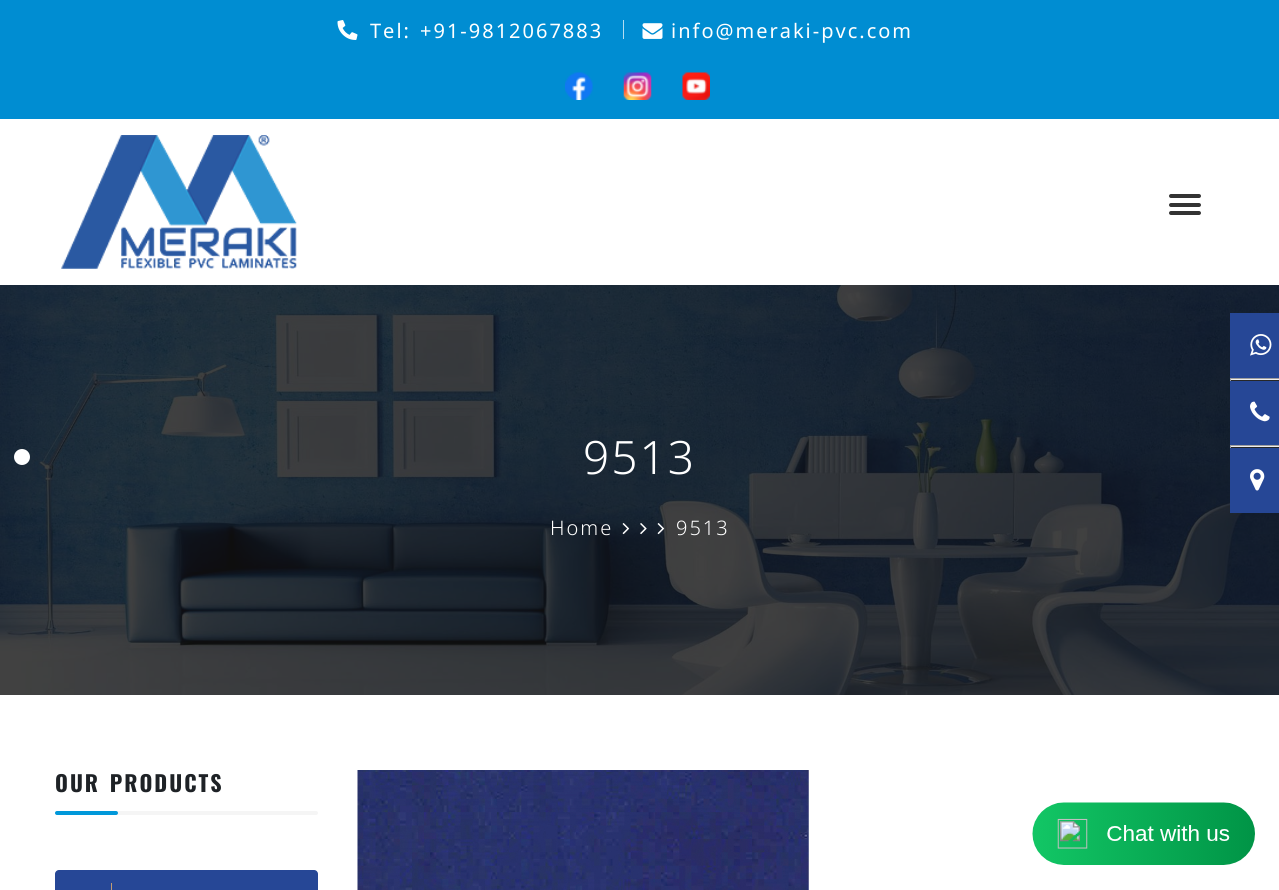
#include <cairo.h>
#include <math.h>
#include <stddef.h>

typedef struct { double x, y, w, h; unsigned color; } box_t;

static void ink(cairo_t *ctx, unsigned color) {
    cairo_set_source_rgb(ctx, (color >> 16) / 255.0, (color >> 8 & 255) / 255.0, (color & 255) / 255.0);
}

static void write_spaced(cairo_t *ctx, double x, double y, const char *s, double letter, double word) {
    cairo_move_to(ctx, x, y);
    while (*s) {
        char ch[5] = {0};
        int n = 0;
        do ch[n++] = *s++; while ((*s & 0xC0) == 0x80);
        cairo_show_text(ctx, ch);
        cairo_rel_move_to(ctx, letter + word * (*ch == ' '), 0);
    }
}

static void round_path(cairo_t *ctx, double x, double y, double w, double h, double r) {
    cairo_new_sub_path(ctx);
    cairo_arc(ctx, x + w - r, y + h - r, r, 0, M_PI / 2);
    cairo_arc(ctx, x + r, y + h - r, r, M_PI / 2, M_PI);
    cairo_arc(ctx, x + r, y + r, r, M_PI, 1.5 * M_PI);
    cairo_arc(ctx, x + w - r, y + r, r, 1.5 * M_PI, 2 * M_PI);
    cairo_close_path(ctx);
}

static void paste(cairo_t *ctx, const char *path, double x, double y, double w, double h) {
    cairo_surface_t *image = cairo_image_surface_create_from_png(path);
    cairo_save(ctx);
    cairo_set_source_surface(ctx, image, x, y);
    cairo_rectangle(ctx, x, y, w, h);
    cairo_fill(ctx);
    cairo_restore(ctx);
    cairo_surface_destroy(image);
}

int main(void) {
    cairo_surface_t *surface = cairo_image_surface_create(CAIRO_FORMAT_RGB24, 1279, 890);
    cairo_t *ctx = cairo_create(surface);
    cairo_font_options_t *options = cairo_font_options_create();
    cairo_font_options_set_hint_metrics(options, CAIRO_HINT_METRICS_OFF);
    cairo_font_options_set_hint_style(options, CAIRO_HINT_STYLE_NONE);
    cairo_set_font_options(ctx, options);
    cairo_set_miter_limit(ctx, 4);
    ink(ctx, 0xFFFFFF);
    cairo_paint(ctx);
    ink(ctx, 0x008DD2);
    cairo_rectangle(ctx, 0, 0, 1279, 119);
    cairo_fill(ctx);
    paste(ctx, "media/1.png", 337, 20, 21, 20);
    cairo_select_font_face(ctx, "Noto Sans", CAIRO_FONT_SLANT_NORMAL, CAIRO_FONT_WEIGHT_NORMAL);
    cairo_set_font_size(ctx, 20);
    ink(ctx, 0xFFFFFF);
    write_spaced(ctx, 370, 38, "Tel:", 2, 0);
    write_spaced(ctx, 420, 38, "+91-9812067883", 2, 0);
    ink(ctx, 0xB3DDF2);
    cairo_rectangle(ctx, 623, 20, 1, 19);
    cairo_fill(ctx);
    paste(ctx, "media/2.png", 642, 23, 21, 16);
    ink(ctx, 0xFFFFFF);
    write_spaced(ctx, 671, 38, "info@meraki-pvc.com", 2, 0);
    paste(ctx, "media/3.png", 565, 72, 28, 28);
    paste(ctx, "media/4.png", 623, 72, 29, 28);
    paste(ctx, "media/5.png", 682, 72, 28, 28);
    paste(ctx, "media/6.png", 61, 135, 236, 134);
    ink(ctx, 0x333333);
    round_path(ctx, 1169, 194, 32, 4, 2);
    cairo_fill(ctx);
    round_path(ctx, 1169, 203, 32, 4, 2);
    cairo_fill(ctx);
    round_path(ctx, 1169, 211, 32, 4, 2);
    cairo_fill(ctx);
    paste(ctx, "media/7.png", 0, 285, 1279, 410);
    ink(ctx, 0xFFFFFF);
    cairo_arc(ctx, 22, 457, 8, 0, 2 * M_PI);
    cairo_fill(ctx);
    cairo_select_font_face(ctx, "Noto Sans Light", CAIRO_FONT_SLANT_NORMAL, CAIRO_FONT_WEIGHT_NORMAL);
    cairo_set_font_size(ctx, 46);
    write_spaced(ctx, 583, 474, "9513", 2, 0);
    cairo_set_font_size(ctx, 20);
    write_spaced(ctx, 550, 535, "Home", 2, 0);
    paste(ctx, "media/8.png", 622, 523, 8, 12);
    paste(ctx, "media/9.png", 640, 523, 7, 12);
    paste(ctx, "media/10.png", 657, 523, 8, 12);
    write_spaced(ctx, 676, 535, "9513", 2, 0);
    ink(ctx, 0x264796);
    cairo_rectangle(ctx, 1230, 313, 49, 200);
    cairo_fill(ctx);
    paste(ctx, "media/11.png", 1250, 334, 22, 22);
    {
        static const box_t items[] = {
            {1230, 380, 49, 1, 0x272727},
            {1230, 378, 49, 1, 0x9F9F9F},
            {1230, 379, 49, 1, 0xEEEEEE},
            {1230, 378, 1, 3, 0x9F9F9F},
        };
        for (size_t i = 0; i < sizeof items / sizeof *items; i++) {
            ink(ctx, items[i].color);
            cairo_rectangle(ctx, items[i].x, items[i].y, items[i].w, items[i].h);
            cairo_fill(ctx);
        }
    }
    paste(ctx, "media/12.png", 1250, 401, 20, 21);
    {
        static const box_t items[] = {
            {1230, 447, 49, 1, 0x272727},
            {1230, 445, 49, 1, 0x9F9F9F},
            {1230, 446, 49, 1, 0xEEEEEE},
            {1230, 445, 1, 3, 0x9F9F9F},
        };
        for (size_t i = 0; i < sizeof items / sizeof *items; i++) {
            ink(ctx, items[i].color);
            cairo_rectangle(ctx, items[i].x, items[i].y, items[i].w, items[i].h);
            cairo_fill(ctx);
        }
    }
    paste(ctx, "media/13.png", 1250, 469, 15, 22);
    cairo_select_font_face(ctx, "Oswald", CAIRO_FONT_SLANT_NORMAL, CAIRO_FONT_WEIGHT_BOLD);
    cairo_set_font_size(ctx, 22);
    ink(ctx, 0x1E2226);
    write_spaced(ctx, 55, 792, "OUR PRODUCTS", 2, 2);
    ink(ctx, 0xF5F5F5);
    round_path(ctx, 55, 811, 263, 4, 2);
    cairo_fill(ctx);
    ink(ctx, 0x0098DA);
    round_path(ctx, 55, 811, 63, 4, 2);
    cairo_fill(ctx);
    ink(ctx, 0x264796);
    round_path(ctx, 55, 870, 263, 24, 4);
    cairo_fill(ctx);
    ink(ctx, 0xC19D73);
    cairo_rectangle(ctx, 111, 883, 1, 7);
    cairo_fill(ctx);
    paste(ctx, "media/14.png", 357, 770, 452, 120);
    paste(ctx, "media/15.png", 1032, 802, 223, 63);
    cairo_surface_write_to_png(surface, "image.png");
    cairo_font_options_destroy(options);
    cairo_destroy(ctx);
    cairo_surface_destroy(surface);
    return 0;
}
